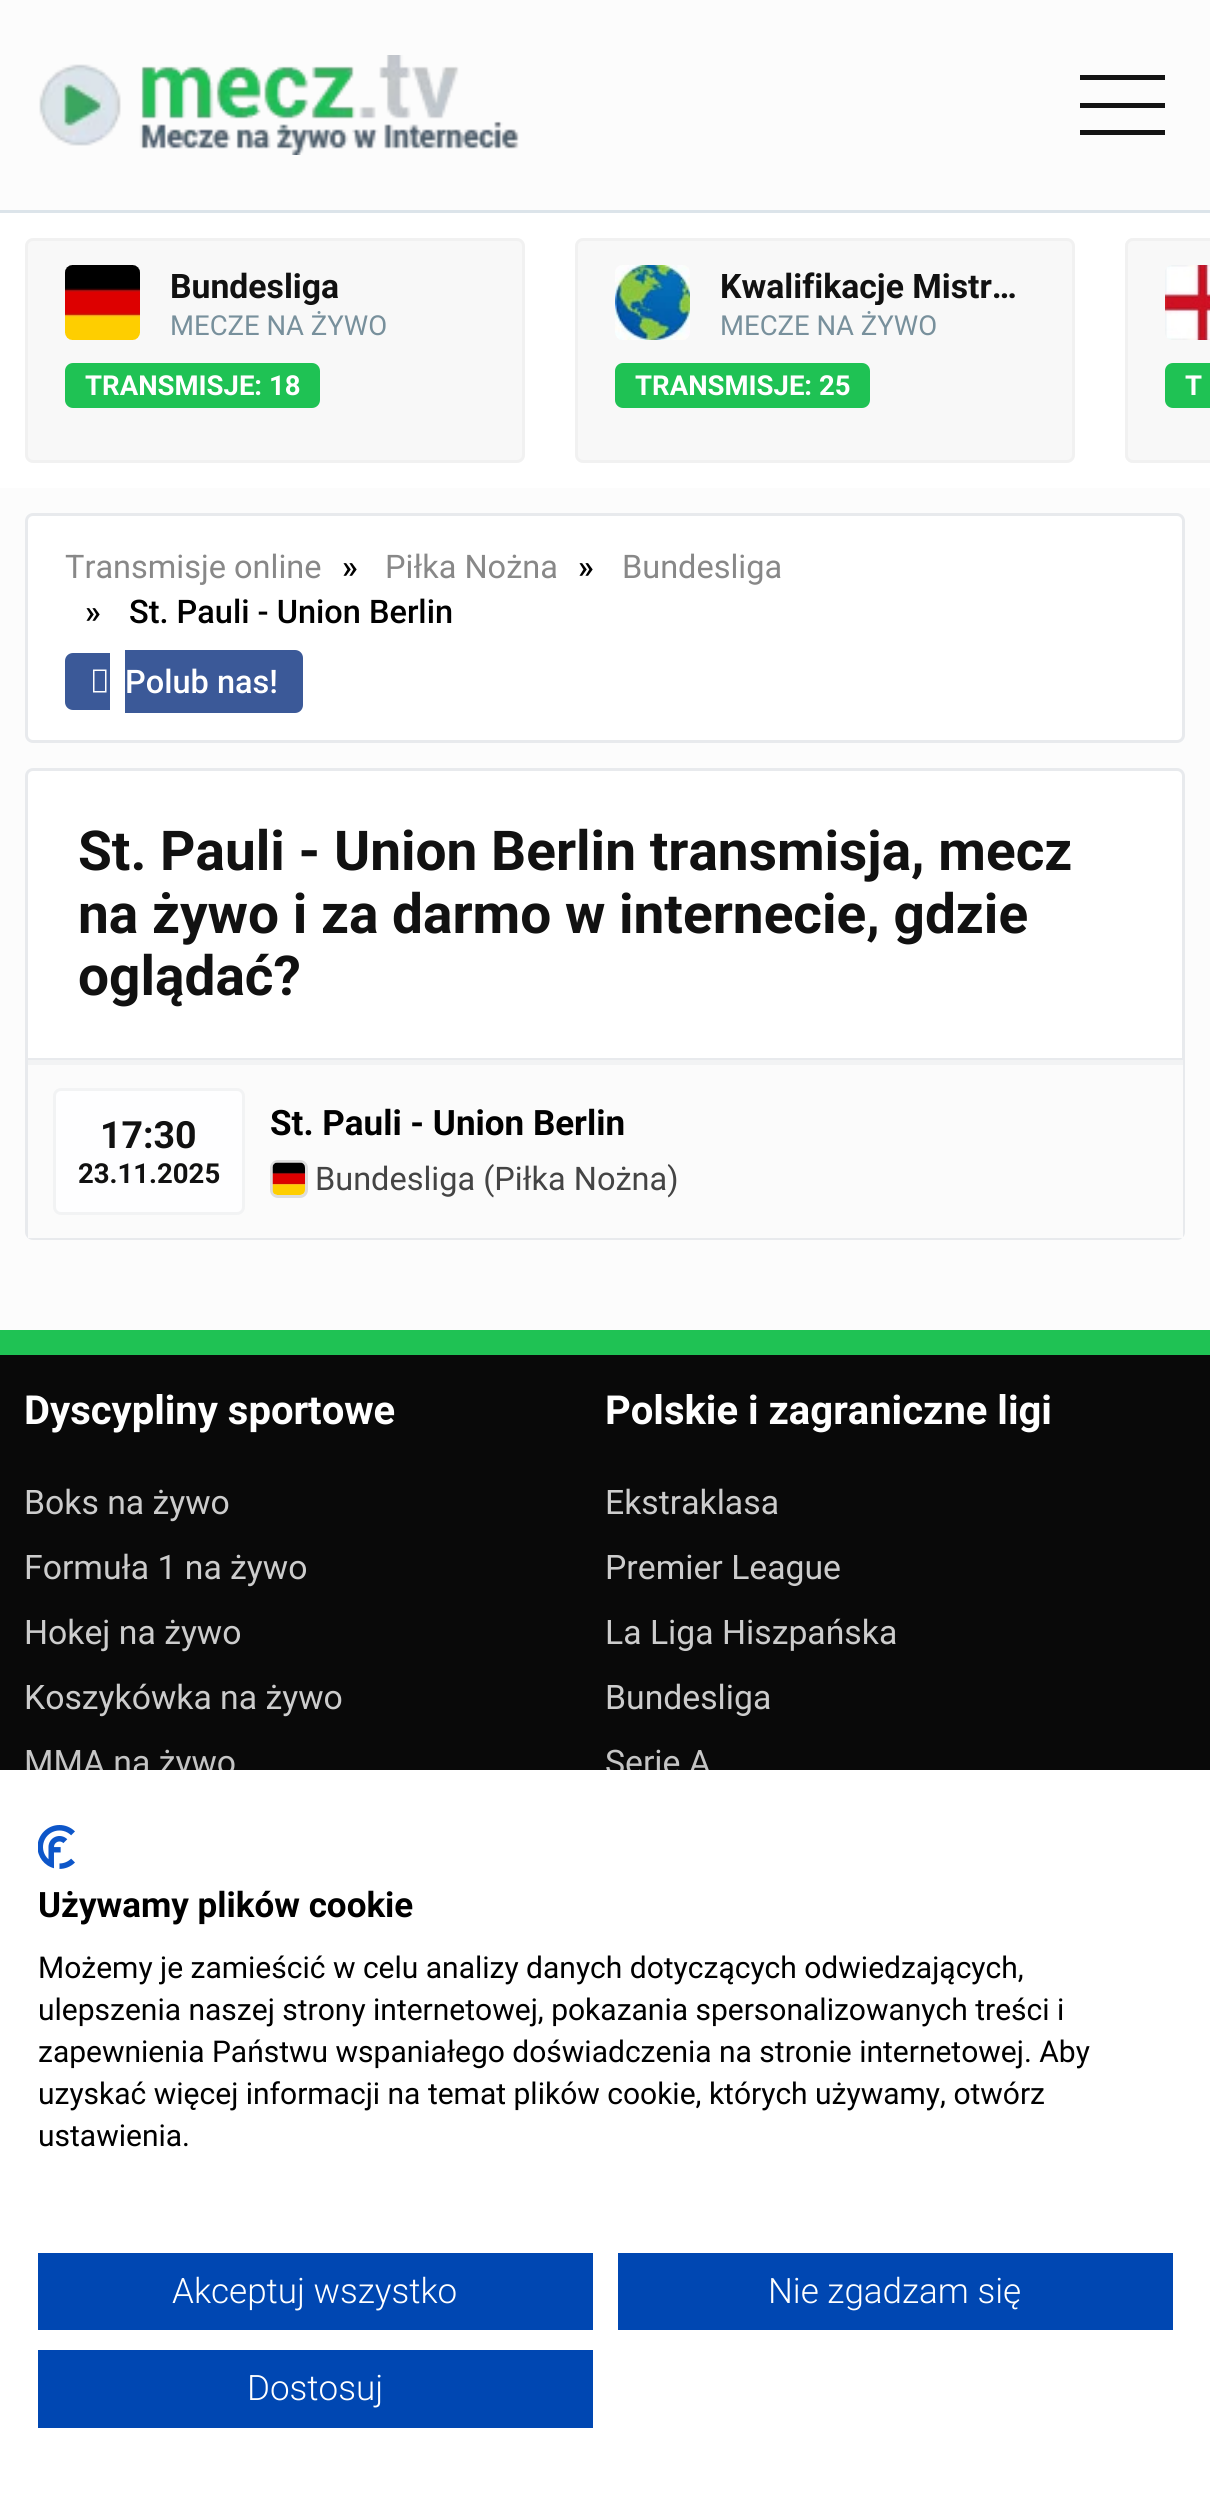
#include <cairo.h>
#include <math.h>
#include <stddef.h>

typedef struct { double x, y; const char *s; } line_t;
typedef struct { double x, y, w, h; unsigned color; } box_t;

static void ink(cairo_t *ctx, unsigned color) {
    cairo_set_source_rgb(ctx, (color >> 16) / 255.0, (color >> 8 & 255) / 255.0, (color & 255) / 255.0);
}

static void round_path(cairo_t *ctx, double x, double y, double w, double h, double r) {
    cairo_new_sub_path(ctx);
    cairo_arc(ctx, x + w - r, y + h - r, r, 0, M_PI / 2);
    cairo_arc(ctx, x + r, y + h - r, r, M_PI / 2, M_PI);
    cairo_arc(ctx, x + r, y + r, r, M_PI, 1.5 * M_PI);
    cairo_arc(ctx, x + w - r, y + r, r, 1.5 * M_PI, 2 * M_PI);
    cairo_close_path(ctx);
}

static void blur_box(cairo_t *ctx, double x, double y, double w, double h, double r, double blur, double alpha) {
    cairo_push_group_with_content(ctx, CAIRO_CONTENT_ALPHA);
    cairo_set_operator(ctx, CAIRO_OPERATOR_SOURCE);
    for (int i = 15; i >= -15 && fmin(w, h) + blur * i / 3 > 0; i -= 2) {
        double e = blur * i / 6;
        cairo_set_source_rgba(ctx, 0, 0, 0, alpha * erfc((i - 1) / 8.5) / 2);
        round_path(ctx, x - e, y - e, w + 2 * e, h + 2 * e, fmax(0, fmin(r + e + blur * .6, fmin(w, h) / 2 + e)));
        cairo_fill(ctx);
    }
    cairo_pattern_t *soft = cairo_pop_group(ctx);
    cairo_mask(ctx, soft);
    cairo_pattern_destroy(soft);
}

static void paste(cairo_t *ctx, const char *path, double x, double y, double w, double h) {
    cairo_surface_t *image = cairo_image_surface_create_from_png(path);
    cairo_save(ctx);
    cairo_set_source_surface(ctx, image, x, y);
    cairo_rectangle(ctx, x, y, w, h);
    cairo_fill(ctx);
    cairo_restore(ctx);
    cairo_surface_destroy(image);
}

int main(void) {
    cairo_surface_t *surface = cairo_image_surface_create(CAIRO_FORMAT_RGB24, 1210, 2495);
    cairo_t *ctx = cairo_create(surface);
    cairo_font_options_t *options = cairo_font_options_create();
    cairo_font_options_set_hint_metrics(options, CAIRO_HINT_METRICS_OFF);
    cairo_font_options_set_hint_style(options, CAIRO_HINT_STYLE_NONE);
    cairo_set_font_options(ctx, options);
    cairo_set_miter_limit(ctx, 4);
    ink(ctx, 0xFCFCFC);
    cairo_paint(ctx);
    ink(ctx, 0xDCE4EA);
    cairo_rectangle(ctx, 0, 210, 1210, 3);
    cairo_fill(ctx);
    paste(ctx, "media/1.png", 39, 55, 480, 100);
    {
        static const box_t items[] = {
            {1080, 75, 85, 5, 0x141414},
            {1080, 103, 85, 5, 0x141414},
            {1080, 130, 85, 5, 0x141414},
            {0, 213, 1210, 275, 0xFFFFFF},
        };
        for (size_t i = 0; i < sizeof items / sizeof *items; i++) {
            ink(ctx, items[i].color);
            cairo_rectangle(ctx, items[i].x, items[i].y, items[i].w, items[i].h);
            cairo_fill(ctx);
        }
    }
    ink(ctx, 0xF8F8F8);
    round_path(ctx, 26.5, 239.5, 497, 222, 6.5);
    cairo_fill_preserve(ctx);
    ink(ctx, 0xF1F1F1);
    cairo_set_line_width(ctx, 3);
    cairo_stroke(ctx);
    paste(ctx, "media/2.png", 65, 265, 75, 75);
    cairo_select_font_face(ctx, "Roboto", CAIRO_FONT_SLANT_NORMAL, CAIRO_FONT_WEIGHT_BOLD);
    cairo_set_font_size(ctx, 33.75);
    ink(ctx, 0x111111);
    cairo_move_to(ctx, 170, 298);
    cairo_show_text(ctx, "Bundesliga");
    cairo_select_font_face(ctx, "Roboto", CAIRO_FONT_SLANT_NORMAL, CAIRO_FONT_WEIGHT_NORMAL);
    cairo_set_font_size(ctx, 27.5);
    ink(ctx, 0x78909C);
    cairo_move_to(ctx, 170, 335);
    cairo_show_text(ctx, "MECZE NA ŻYWO");
    ink(ctx, 0x1FC254);
    round_path(ctx, 65, 363, 255, 45, 8);
    cairo_fill(ctx);
    cairo_select_font_face(ctx, "Roboto", CAIRO_FONT_SLANT_NORMAL, CAIRO_FONT_WEIGHT_BOLD);
    ink(ctx, 0xFFFFFF);
    cairo_move_to(ctx, 85, 395);
    cairo_show_text(ctx, "TRANSMISJE: 18");
    ink(ctx, 0xF8F8F8);
    round_path(ctx, 576.5, 239.5, 497, 222, 6.5);
    cairo_fill_preserve(ctx);
    ink(ctx, 0xF1F1F1);
    cairo_stroke(ctx);
    paste(ctx, "media/3.png", 615, 265, 75, 75);
    cairo_save(ctx);
    cairo_rectangle(ctx, 720, 265, 308, 40);
    cairo_clip(ctx);
    cairo_set_font_size(ctx, 33.75);
    ink(ctx, 0x111111);
    cairo_move_to(ctx, 720, 298);
    cairo_show_text(ctx, "Kwalifikacje Mistr…");
    cairo_restore(ctx);
    cairo_select_font_face(ctx, "Roboto", CAIRO_FONT_SLANT_NORMAL, CAIRO_FONT_WEIGHT_NORMAL);
    ink(ctx, 0x78909C);
    cairo_move_to(ctx, 720, 335);
    cairo_show_text(ctx, "MECZE NA ŻYWO");
    ink(ctx, 0x1FC254);
    round_path(ctx, 615, 363, 255, 45, 8);
    cairo_fill(ctx);
    cairo_select_font_face(ctx, "Roboto", CAIRO_FONT_SLANT_NORMAL, CAIRO_FONT_WEIGHT_BOLD);
    ink(ctx, 0xFFFFFF);
    cairo_move_to(ctx, 635, 395);
    cairo_show_text(ctx, "TRANSMISJE: 25");
    ink(ctx, 0xF8F8F8);
    cairo_new_path(ctx);
    cairo_move_to(ctx, 1133, 238);
    cairo_line_to(ctx, 1210, 238);
    cairo_line_to(ctx, 1210, 463);
    cairo_line_to(ctx, 1133, 463);
    cairo_curve_to(ctx, 1128.5, 463, 1125, 459.5, 1125, 455);
    cairo_line_to(ctx, 1125, 246);
    cairo_curve_to(ctx, 1125, 241.5, 1128.5, 238, 1133, 238);
    cairo_close_path(ctx);
    cairo_fill(ctx);
    round_path(ctx, 1126.5, 239.5, 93, 222, 6.5);
    ink(ctx, 0xF1F1F1);
    cairo_stroke(ctx);
    paste(ctx, "media/4.png", 1165, 265, 45, 75);
    ink(ctx, 0x1FC254);
    cairo_new_path(ctx);
    cairo_move_to(ctx, 1173, 363);
    cairo_line_to(ctx, 1210, 363);
    cairo_line_to(ctx, 1210, 408);
    cairo_line_to(ctx, 1173, 408);
    cairo_curve_to(ctx, 1168.5, 408, 1165, 404.5, 1165, 400);
    cairo_line_to(ctx, 1165, 371);
    cairo_curve_to(ctx, 1165, 366.5, 1168.5, 363, 1173, 363);
    cairo_close_path(ctx);
    cairo_fill(ctx);
    ink(ctx, 0xFFFFFF);
    cairo_move_to(ctx, 1185, 395);
    cairo_show_text(ctx, "T");
    round_path(ctx, 26.5, 514.5, 1157, 227, 6.5);
    cairo_fill_preserve(ctx);
    ink(ctx, 0xE8EAED);
    cairo_stroke(ctx);
    cairo_select_font_face(ctx, "Roboto", CAIRO_FONT_SLANT_NORMAL, CAIRO_FONT_WEIGHT_NORMAL);
    cairo_set_font_size(ctx, 32.5);
    ink(ctx, 0x888888);
    cairo_move_to(ctx, 65, 578);
    cairo_show_text(ctx, "Transmisje online");
    cairo_select_font_face(ctx, "Roboto Medium", CAIRO_FONT_SLANT_NORMAL, CAIRO_FONT_WEIGHT_NORMAL);
    ink(ctx, 0x000000);
    cairo_move_to(ctx, 342, 578);
    cairo_show_text(ctx, "»");
    cairo_select_font_face(ctx, "Roboto", CAIRO_FONT_SLANT_NORMAL, CAIRO_FONT_WEIGHT_NORMAL);
    ink(ctx, 0x888888);
    cairo_move_to(ctx, 385, 578);
    cairo_show_text(ctx, "Piłka Nożna");
    cairo_select_font_face(ctx, "Roboto Medium", CAIRO_FONT_SLANT_NORMAL, CAIRO_FONT_WEIGHT_NORMAL);
    ink(ctx, 0x000000);
    cairo_move_to(ctx, 578, 578);
    cairo_show_text(ctx, "»");
    cairo_select_font_face(ctx, "Roboto", CAIRO_FONT_SLANT_NORMAL, CAIRO_FONT_WEIGHT_NORMAL);
    ink(ctx, 0x888888);
    cairo_move_to(ctx, 622, 578);
    cairo_show_text(ctx, "Bundesliga");
    cairo_select_font_face(ctx, "Roboto Medium", CAIRO_FONT_SLANT_NORMAL, CAIRO_FONT_WEIGHT_NORMAL);
    ink(ctx, 0x000000);
    cairo_move_to(ctx, 85, 623);
    cairo_show_text(ctx, "»");
    cairo_move_to(ctx, 129, 623);
    cairo_show_text(ctx, "St. Pauli - Union Berlin");
    ink(ctx, 0x3B5998);
    cairo_new_path(ctx);
    cairo_move_to(ctx, 73, 653);
    cairo_line_to(ctx, 110, 653);
    cairo_line_to(ctx, 110, 710);
    cairo_line_to(ctx, 73, 710);
    cairo_curve_to(ctx, 68.5, 710, 65, 706.5, 65, 702);
    cairo_line_to(ctx, 65, 661);
    cairo_curve_to(ctx, 65, 656.5, 68.5, 653, 73, 653);
    cairo_close_path(ctx);
    cairo_fill(ctx);
    cairo_new_path(ctx);
    cairo_move_to(ctx, 125, 650);
    cairo_line_to(ctx, 295, 650);
    cairo_curve_to(ctx, 299.5, 650, 303, 653.5, 303, 658);
    cairo_line_to(ctx, 303, 705);
    cairo_curve_to(ctx, 303, 709.5, 299.5, 713, 295, 713);
    cairo_line_to(ctx, 125, 713);
    cairo_close_path(ctx);
    cairo_fill(ctx);
    ink(ctx, 0xFFFFFF);
    cairo_new_path(ctx);
    cairo_move_to(ctx, 93, 692.5);
    cairo_line_to(ctx, 93, 669.5);
    cairo_line_to(ctx, 106.5, 669.5);
    cairo_line_to(ctx, 106.5, 692.5);
    cairo_close_path(ctx);
    cairo_move_to(ctx, 94.5, 691);
    cairo_line_to(ctx, 105, 691);
    cairo_line_to(ctx, 105, 671);
    cairo_line_to(ctx, 94.5, 671);
    cairo_close_path(ctx);
    cairo_fill(ctx);
    cairo_move_to(ctx, 125, 693);
    cairo_show_text(ctx, "Polub nas!");
    round_path(ctx, 26.5, 769.5, 1157, 469, 6.5);
    cairo_fill_preserve(ctx);
    ink(ctx, 0xE8EAED);
    cairo_stroke(ctx);
    cairo_rectangle(ctx, 28, 1058, 1155, 2);
    cairo_fill(ctx);
    cairo_select_font_face(ctx, "Roboto", CAIRO_FONT_SLANT_NORMAL, CAIRO_FONT_WEIGHT_BOLD);
    cairo_set_font_size(ctx, 55);
    ink(ctx, 0x111111);
    {
        static const line_t items[] = {
            {78, 870, "St. Pauli - Union Berlin transmisja, mecz"},
            {78, 933, "na żywo i za darmo w internecie, gdzie"},
            {78, 995, "oglądać?"},
        };
        for (size_t i = 0; i < sizeof items / sizeof *items; i++) {
            cairo_move_to(ctx, items[i].x, items[i].y);
            cairo_show_text(ctx, items[i].s);
        }
    }
    ink(ctx, 0xFBFBFB);
    cairo_rectangle(ctx, 28, 1065, 1155, 173);
    cairo_fill(ctx);
    ink(ctx, 0xF2F3F4);
    cairo_rectangle(ctx, 28, 1060, 1155, 5);
    cairo_fill(ctx);
    ink(ctx, 0xFEFEFF);
    round_path(ctx, 54.5, 1089.5, 189, 124, 6.5);
    cairo_fill_preserve(ctx);
    ink(ctx, 0xF2F3F4);
    cairo_stroke(ctx);
    cairo_set_font_size(ctx, 37.5);
    ink(ctx, 0x111111);
    cairo_move_to(ctx, 100, 1148);
    cairo_show_text(ctx, "17:30");
    cairo_set_font_size(ctx, 27.5);
    cairo_move_to(ctx, 78, 1183);
    cairo_show_text(ctx, "23.11.2025");
    cairo_set_font_size(ctx, 35);
    ink(ctx, 0x000000);
    cairo_move_to(ctx, 270, 1135);
    cairo_show_text(ctx, "St. Pauli - Union Berlin");
    round_path(ctx, 271.5, 1161.5, 35, 35, 6.5);
    ink(ctx, 0xDDDDDD);
    cairo_stroke(ctx);
    paste(ctx, "media/5.png", 272, 1162, 33, 33);
    cairo_select_font_face(ctx, "Roboto", CAIRO_FONT_SLANT_NORMAL, CAIRO_FONT_WEIGHT_NORMAL);
    cairo_set_font_size(ctx, 32.5);
    ink(ctx, 0x444444);
    cairo_move_to(ctx, 315, 1190);
    cairo_show_text(ctx, "Bundesliga (Piłka Nożna)");
    ink(ctx, 0x090909);
    cairo_rectangle(ctx, 0, 1355, 1210, 415);
    cairo_fill(ctx);
    ink(ctx, 0x1FC254);
    cairo_rectangle(ctx, 0, 1330, 1210, 25);
    cairo_fill(ctx);
    cairo_select_font_face(ctx, "Roboto", CAIRO_FONT_SLANT_NORMAL, CAIRO_FONT_WEIGHT_BOLD);
    cairo_set_font_size(ctx, 40);
    ink(ctx, 0xFFFFFF);
    cairo_move_to(ctx, 24, 1424);
    cairo_show_text(ctx, "Dyscypliny sportowe");
    cairo_select_font_face(ctx, "Roboto", CAIRO_FONT_SLANT_NORMAL, CAIRO_FONT_WEIGHT_NORMAL);
    cairo_set_font_size(ctx, 33.75);
    ink(ctx, 0xCCCCCC);
    {
        static const line_t items[] = {
            {24, 1514, "Boks na żywo"},
            {24, 1579, "Formuła 1 na żywo"},
            {24, 1644, "Hokej na żywo"},
            {24, 1709, "Koszykówka na żywo"},
            {24, 1774, "MMA na żywo"},
        };
        for (size_t i = 0; i < sizeof items / sizeof *items; i++) {
            cairo_move_to(ctx, items[i].x, items[i].y);
            cairo_show_text(ctx, items[i].s);
        }
    }
    cairo_select_font_face(ctx, "Roboto", CAIRO_FONT_SLANT_NORMAL, CAIRO_FONT_WEIGHT_BOLD);
    cairo_set_font_size(ctx, 40);
    ink(ctx, 0xFFFFFF);
    cairo_move_to(ctx, 605, 1424);
    cairo_show_text(ctx, "Polskie i zagraniczne ligi");
    cairo_select_font_face(ctx, "Roboto", CAIRO_FONT_SLANT_NORMAL, CAIRO_FONT_WEIGHT_NORMAL);
    cairo_set_font_size(ctx, 33.75);
    ink(ctx, 0xCCCCCC);
    {
        static const line_t items[] = {
            {605, 1514, "Ekstraklasa"},
            {605, 1579, "Premier League"},
            {605, 1644, "La Liga Hiszpańska"},
            {605, 1709, "Bundesliga"},
            {605, 1774, "Serie A"},
        };
        for (size_t i = 0; i < sizeof items / sizeof *items; i++) {
            cairo_move_to(ctx, items[i].x, items[i].y);
            cairo_show_text(ctx, items[i].s);
        }
    }
    ink(ctx, 0x000000);
    blur_box(ctx, 0, 1770, 1210, 725, 0, 30, 0.1);
    ink(ctx, 0xFFFFFF);
    cairo_rectangle(ctx, 0, 1770, 1210, 725);
    cairo_fill(ctx);
    paste(ctx, "media/6.png", 38, 1825, 37, 44);
    cairo_select_font_face(ctx, "Roboto", CAIRO_FONT_SLANT_NORMAL, CAIRO_FONT_WEIGHT_BOLD);
    cairo_set_font_size(ctx, 35);
    ink(ctx, 0x000000);
    cairo_move_to(ctx, 38, 1917);
    cairo_show_text(ctx, "Używamy plików cookie");
    cairo_select_font_face(ctx, "Roboto", CAIRO_FONT_SLANT_NORMAL, CAIRO_FONT_WEIGHT_NORMAL);
    cairo_set_font_size(ctx, 30);
    {
        static const line_t items[] = {
            {38, 1978, "Możemy je zamieścić w celu analizy danych dotyczących odwiedzających,"},
            {38, 2020, "ulepszenia naszej strony internetowej, pokazania spersonalizowanych treści i"},
            {38, 2062, "zapewnienia Państwu wspaniałego doświadczenia na stronie internetowej. Aby"},
            {38, 2104, "uzyskać więcej informacji na temat plików cookie, których używamy, otwórz"},
            {38, 2146, "ustawienia."},
        };
        for (size_t i = 0; i < sizeof items / sizeof *items; i++) {
            cairo_move_to(ctx, items[i].x, items[i].y);
            cairo_show_text(ctx, items[i].s);
        }
    }
    ink(ctx, 0x0047B2);
    cairo_rectangle(ctx, 38, 2253, 555, 77);
    cairo_fill(ctx);
    cairo_select_font_face(ctx, "Roboto Light", CAIRO_FONT_SLANT_NORMAL, CAIRO_FONT_WEIGHT_NORMAL);
    cairo_set_font_size(ctx, 35);
    ink(ctx, 0xFFFFFF);
    cairo_move_to(ctx, 172, 2303);
    cairo_show_text(ctx, "Akceptuj wszystko");
    ink(ctx, 0x0047B2);
    cairo_rectangle(ctx, 618, 2253, 555, 77);
    cairo_fill(ctx);
    ink(ctx, 0xFFFFFF);
    cairo_move_to(ctx, 768, 2303);
    cairo_show_text(ctx, "Nie zgadzam się");
    ink(ctx, 0x0047B2);
    cairo_rectangle(ctx, 38, 2350, 555, 78);
    cairo_fill(ctx);
    ink(ctx, 0xFFFFFF);
    cairo_move_to(ctx, 247, 2400);
    cairo_show_text(ctx, "Dostosuj");
    cairo_surface_write_to_png(surface, "image.png");
    cairo_font_options_destroy(options);
    cairo_destroy(ctx);
    cairo_surface_destroy(surface);
    return 0;
}
